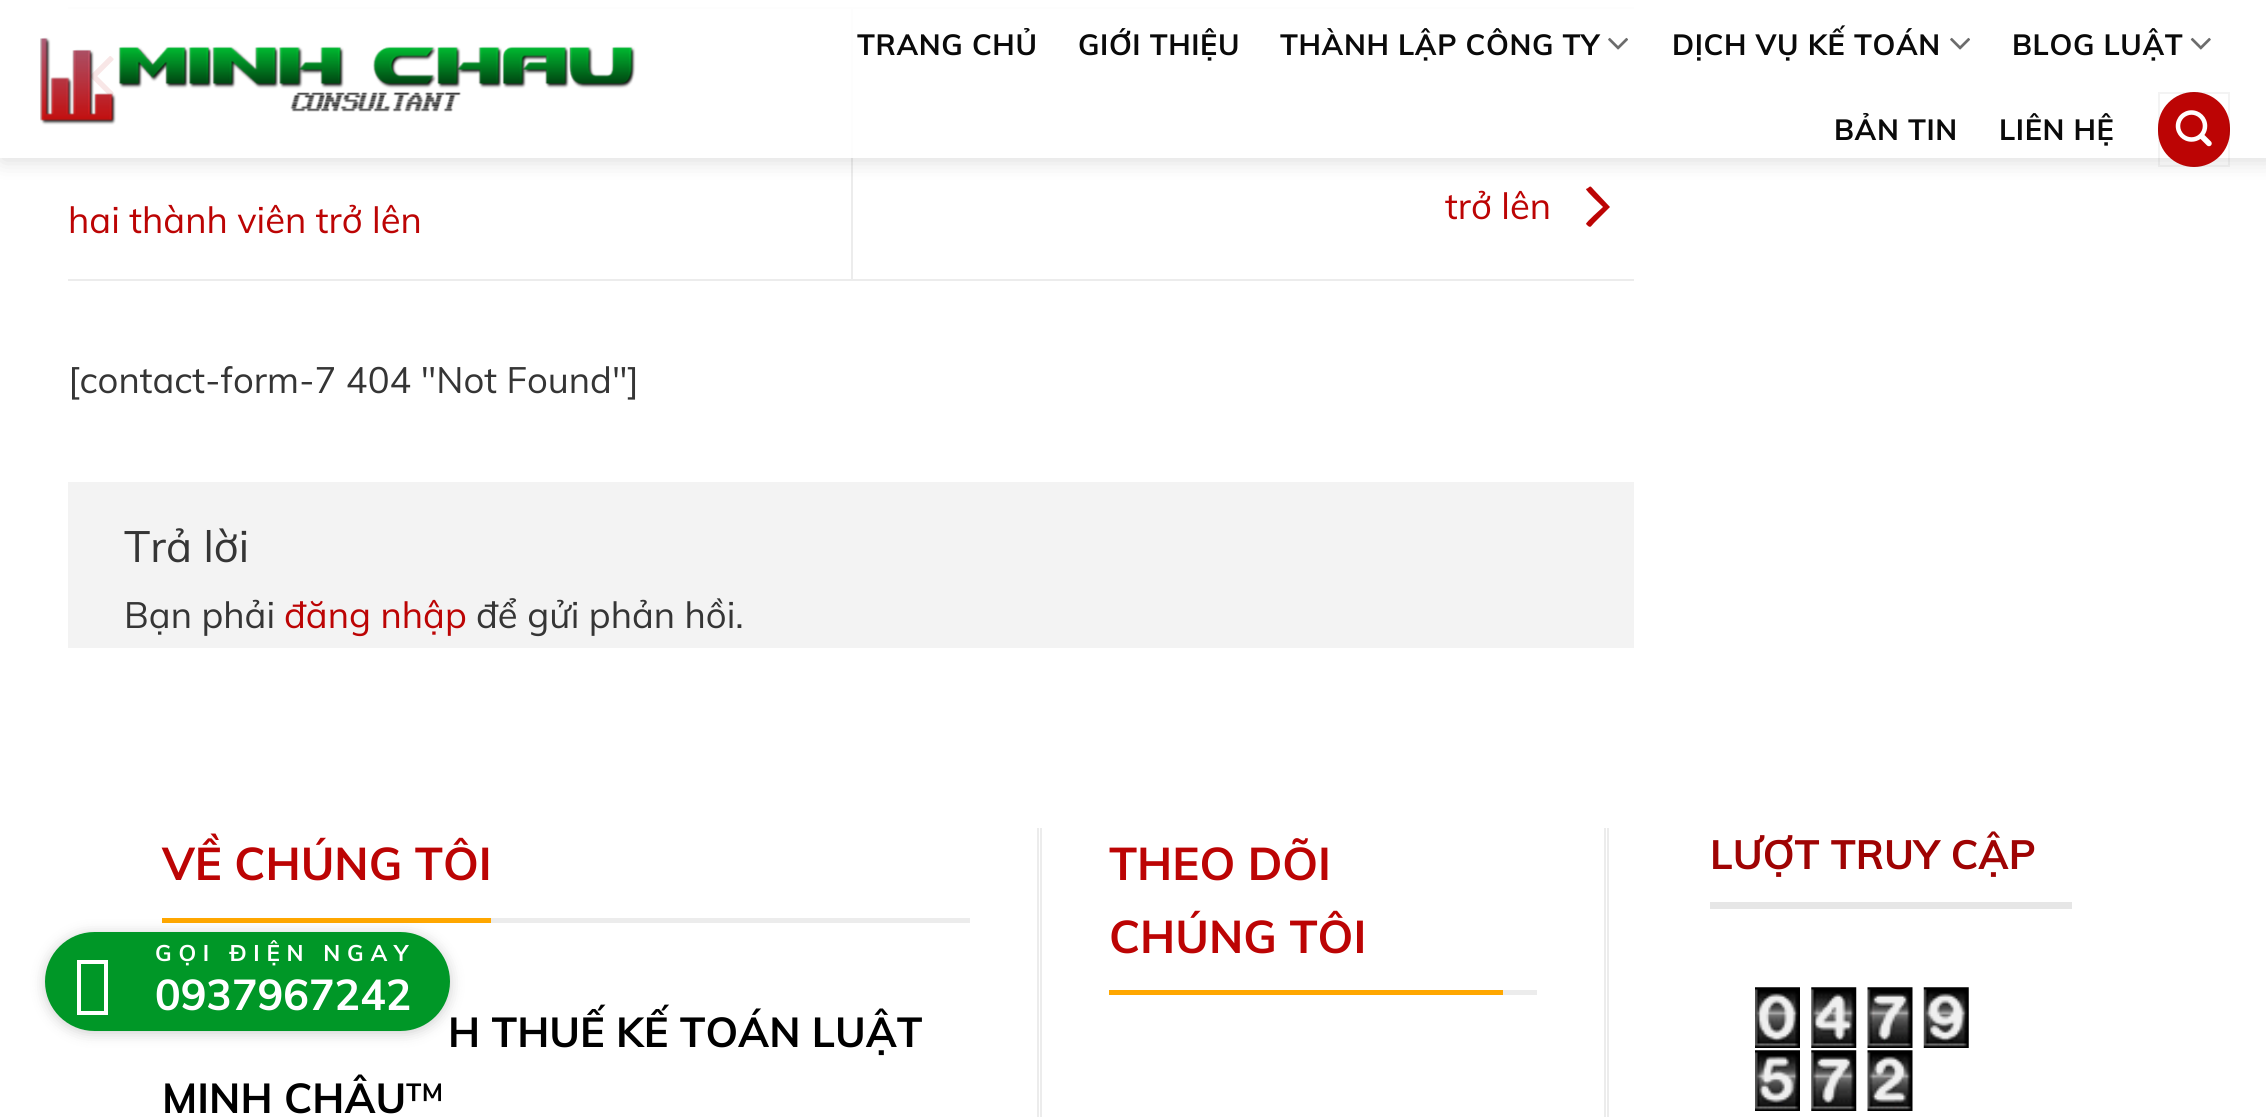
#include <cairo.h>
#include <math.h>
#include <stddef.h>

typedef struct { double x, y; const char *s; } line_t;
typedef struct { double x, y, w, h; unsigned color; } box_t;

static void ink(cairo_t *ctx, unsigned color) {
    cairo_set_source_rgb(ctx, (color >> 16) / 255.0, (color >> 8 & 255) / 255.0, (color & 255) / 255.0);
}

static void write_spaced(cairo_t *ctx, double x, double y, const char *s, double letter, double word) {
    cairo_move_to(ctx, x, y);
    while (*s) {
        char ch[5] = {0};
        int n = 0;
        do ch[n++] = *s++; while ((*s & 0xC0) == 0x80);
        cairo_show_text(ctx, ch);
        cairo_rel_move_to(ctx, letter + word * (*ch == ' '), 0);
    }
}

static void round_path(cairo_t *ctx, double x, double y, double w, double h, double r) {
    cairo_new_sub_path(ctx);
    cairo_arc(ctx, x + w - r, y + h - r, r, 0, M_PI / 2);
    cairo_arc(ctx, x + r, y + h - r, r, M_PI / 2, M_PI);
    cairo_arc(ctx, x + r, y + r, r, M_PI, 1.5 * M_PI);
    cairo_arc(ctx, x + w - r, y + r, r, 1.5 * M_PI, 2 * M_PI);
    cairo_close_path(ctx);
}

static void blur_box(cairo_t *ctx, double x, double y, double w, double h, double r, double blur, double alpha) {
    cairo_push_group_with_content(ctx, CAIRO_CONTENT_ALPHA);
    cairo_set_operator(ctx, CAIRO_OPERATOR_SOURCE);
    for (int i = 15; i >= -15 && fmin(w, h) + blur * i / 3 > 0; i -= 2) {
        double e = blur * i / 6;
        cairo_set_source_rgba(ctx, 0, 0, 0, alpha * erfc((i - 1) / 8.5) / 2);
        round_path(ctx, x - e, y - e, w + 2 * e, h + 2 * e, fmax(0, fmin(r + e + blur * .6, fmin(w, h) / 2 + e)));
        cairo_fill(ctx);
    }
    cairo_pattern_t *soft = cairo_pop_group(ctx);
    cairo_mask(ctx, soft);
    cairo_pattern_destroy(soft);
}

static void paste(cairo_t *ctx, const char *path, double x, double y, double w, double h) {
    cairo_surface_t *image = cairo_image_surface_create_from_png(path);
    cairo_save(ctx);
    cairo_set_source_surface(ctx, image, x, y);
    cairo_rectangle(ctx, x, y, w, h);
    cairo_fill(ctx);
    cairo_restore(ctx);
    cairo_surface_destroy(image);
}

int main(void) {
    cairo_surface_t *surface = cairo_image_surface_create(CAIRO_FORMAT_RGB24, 2266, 1117);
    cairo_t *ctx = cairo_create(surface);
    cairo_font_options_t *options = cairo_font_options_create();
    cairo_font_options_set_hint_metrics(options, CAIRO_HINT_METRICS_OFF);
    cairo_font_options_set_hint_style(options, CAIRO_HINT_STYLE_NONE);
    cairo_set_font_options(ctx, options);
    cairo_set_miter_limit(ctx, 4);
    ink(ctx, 0xFFFFFF);
    cairo_paint(ctx);
    ink(ctx, 0xECECEC);
    cairo_rectangle(ctx, 68, 7, 1566, 2);
    cairo_fill(ctx);
    paste(ctx, "media/5.png", 90, 56, 24, 41);
    cairo_rectangle(ctx, 851, 9, 2, 270);
    cairo_fill(ctx);
    ink(ctx, 0xBC0404);
    cairo_new_path(ctx);
    cairo_move_to(ctx, 1610, 207);
    cairo_line_to(ctx, 1594, 223);
    cairo_curve_to(ctx, 1591, 226, 1591, 228, 1588, 226);
    cairo_line_to(ctx, 1586, 224);
    cairo_curve_to(ctx, 1586, 222, 1601, 209, 1603, 207);
    cairo_curve_to(ctx, 1601, 205, 1586, 191, 1586, 189);
    cairo_line_to(ctx, 1588, 188);
    cairo_curve_to(ctx, 1591, 185, 1591, 187, 1594, 190);
    cairo_close_path(ctx);
    cairo_fill(ctx);
    cairo_save(ctx);
    cairo_set_fill_rule(ctx, CAIRO_FILL_RULE_EVEN_ODD);
    cairo_new_path(ctx);
    cairo_move_to(ctx, 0, 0);
    cairo_line_to(ctx, 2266, 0);
    cairo_line_to(ctx, 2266, 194);
    cairo_line_to(ctx, 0, 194);
    cairo_close_path(ctx);
    cairo_move_to(ctx, 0, 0);
    cairo_line_to(ctx, 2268, 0);
    cairo_line_to(ctx, 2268, 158);
    cairo_line_to(ctx, 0, 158);
    cairo_close_path(ctx);
    cairo_clip(ctx);
    ink(ctx, 0x000000);
    blur_box(ctx, 2, 2, 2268, 158, 0, 11, 0.15);
    cairo_restore(ctx);
    cairo_set_source_rgba(ctx, 1, 1, 1, 0.9);
    cairo_rectangle(ctx, 0, 7, 2266, 151);
    cairo_fill(ctx);
    paste(ctx, "media/1.png", 40, 37, 596, 88);
    cairo_select_font_face(ctx, "Muli", CAIRO_FONT_SLANT_NORMAL, CAIRO_FONT_WEIGHT_BOLD);
    cairo_set_font_size(ctx, 29);
    ink(ctx, 0x0A0A0A);
    {
        static const line_t items[] = {
            {857, 55, "TRANG CHỦ"},
            {1078, 55, "GIỚI THIỆU"},
            {1280, 55, "THÀNH LẬP CÔNG TY"},
        };
        for (size_t i = 0; i < sizeof items / sizeof *items; i++) {
            write_spaced(ctx, items[i].x, items[i].y, items[i].s, 0.6, 0);
        }
    }
    paste(ctx, "media/2.png", 1608, 37, 20, 13);
    write_spaced(ctx, 1672, 55, "DỊCH VỤ KẾ TOÁN", 0.6, 0);
    paste(ctx, "media/2.png", 1950, 37, 20, 13);
    write_spaced(ctx, 2012, 55, "BLOG LUẬT", 0.6, 0);
    paste(ctx, "media/3.png", 2190, 37, 21, 13);
    write_spaced(ctx, 1834, 140, "BẢN TIN", 0.6, 0);
    write_spaced(ctx, 1999, 140, "LIÊN HỆ", 0.6, 0);
    ink(ctx, 0xBC0404);
    round_path(ctx, 2158, 92, 72, 75, 36);
    cairo_fill(ctx);
    cairo_rectangle(ctx, 2159, 93, 70, 73);
    cairo_set_source_rgba(ctx, 0, 0, 0, 0.05);
    cairo_stroke(ctx);
    paste(ctx, "media/4.png", 2175, 110, 37, 37);
    ink(ctx, 0xECECEC);
    cairo_rectangle(ctx, 68, 279, 1566, 2);
    cairo_fill(ctx);
    cairo_select_font_face(ctx, "Muli", CAIRO_FONT_SLANT_NORMAL, CAIRO_FONT_WEIGHT_NORMAL);
    cairo_set_font_size(ctx, 36.4);
    ink(ctx, 0xBC0404);
    cairo_move_to(ctx, 68, 233);
    cairo_show_text(ctx, "hai thành viên trở lên");
    cairo_move_to(ctx, 1445, 219);
    cairo_show_text(ctx, "trở lên");
    ink(ctx, 0x353535);
    cairo_move_to(ctx, 68, 393);
    cairo_show_text(ctx, "[contact-form-7 404 \"Not Found\"]");
    ink(ctx, 0xF3F3F3);
    cairo_rectangle(ctx, 68, 482, 1566, 166);
    cairo_fill(ctx);
    cairo_set_font_size(ctx, 43.5);
    ink(ctx, 0x353535);
    cairo_move_to(ctx, 124, 562);
    cairo_show_text(ctx, "Trả lời");
    cairo_set_font_size(ctx, 36.4);
    cairo_move_to(ctx, 124, 628);
    cairo_show_text(ctx, "Bạn phải");
    ink(ctx, 0xBC0404);
    cairo_move_to(ctx, 284, 628);
    cairo_show_text(ctx, "đăng nhập");
    ink(ctx, 0x353535);
    cairo_move_to(ctx, 476, 628);
    cairo_show_text(ctx, "để gửi phản hồi.");
    {
        static const box_t items[] = {
            {1037, 828, 2, 289, 0xECECEC},
            {491, 918, 479, 5, 0xECECEC},
            {162, 918, 329, 5, 0xFFA700},
        };
        for (size_t i = 0; i < sizeof items / sizeof *items; i++) {
            ink(ctx, items[i].color);
            cairo_rectangle(ctx, items[i].x, items[i].y, items[i].w, items[i].h);
            cairo_fill(ctx);
        }
    }
    cairo_select_font_face(ctx, "Muli", CAIRO_FONT_SLANT_NORMAL, CAIRO_FONT_WEIGHT_BOLD);
    cairo_set_font_size(ctx, 45.5);
    ink(ctx, 0xBC0404);
    cairo_move_to(ctx, 162, 880);
    cairo_show_text(ctx, "VỀ CHÚNG TÔI");
    cairo_set_font_size(ctx, 41.5);
    ink(ctx, 0x000000);
    cairo_move_to(ctx, 448, 1047);
    cairo_show_text(ctx, "H THUẾ KẾ TOÁN LUẬT");
    cairo_move_to(ctx, 162, 1113);
    cairo_show_text(ctx, "MINH CHÂU");
    cairo_select_font_face(ctx, "Muli", CAIRO_FONT_SLANT_NORMAL, CAIRO_FONT_WEIGHT_NORMAL);
    cairo_move_to(ctx, 406, 1113);
    cairo_show_text(ctx, "™");
    {
        static const box_t items[] = {
            {1604, 828, 2, 289, 0xECECEC},
            {1040, 828, 2, 289, 0xECECEC},
            {1503, 990, 34, 5, 0xECECEC},
            {1109, 990, 394, 5, 0xFFA700},
        };
        for (size_t i = 0; i < sizeof items / sizeof *items; i++) {
            ink(ctx, items[i].color);
            cairo_rectangle(ctx, items[i].x, items[i].y, items[i].w, items[i].h);
            cairo_fill(ctx);
        }
    }
    cairo_select_font_face(ctx, "Muli", CAIRO_FONT_SLANT_NORMAL, CAIRO_FONT_WEIGHT_BOLD);
    cairo_set_font_size(ctx, 45.5);
    ink(ctx, 0xBC0404);
    cairo_move_to(ctx, 1109, 880);
    cairo_show_text(ctx, "THEO DÕI");
    cairo_move_to(ctx, 1109, 953);
    cairo_show_text(ctx, "CHÚNG TÔI");
    ink(ctx, 0xECECEC);
    cairo_rectangle(ctx, 1607, 828, 2, 289);
    cairo_fill(ctx);
    cairo_set_font_size(ctx, 40.5);
    ink(ctx, 0x9F0303);
    cairo_move_to(ctx, 1710, 869);
    cairo_show_text(ctx, "LƯỢT TRUY CẬP");
    ink(ctx, 0xE6E6E6);
    cairo_rectangle(ctx, 1710, 902, 362, 7);
    cairo_fill(ctx);
    paste(ctx, "media/6.png", 1755, 987, 45, 61);
    paste(ctx, "media/7.png", 1811, 987, 46, 61);
    paste(ctx, "media/8.png", 1867, 987, 46, 61);
    paste(ctx, "media/9.png", 1923, 987, 46, 61);
    paste(ctx, "media/10.png", 1755, 1050, 45, 61);
    paste(ctx, "media/11.png", 1811, 1050, 46, 61);
    paste(ctx, "media/12.png", 1867, 1050, 46, 61);
    ink(ctx, 0x000000);
    blur_box(ctx, 45, 934, 405, 99, 49.5, 7, 0.2);
    ink(ctx, 0x009727);
    round_path(ctx, 45, 932, 405, 99, 49.5);
    cairo_fill(ctx);
    cairo_set_font_size(ctx, 22.5);
    ink(ctx, 0xFFFFFF);
    write_spaced(ctx, 155, 961, "GỌI ĐIỆN NGAY", 6.75, 0);
    cairo_new_path(ctx);
    cairo_move_to(ctx, 77, 1015);
    cairo_line_to(ctx, 77, 960);
    cairo_line_to(ctx, 108, 960);
    cairo_line_to(ctx, 108, 1015);
    cairo_close_path(ctx);
    cairo_move_to(ctx, 81, 1011);
    cairo_line_to(ctx, 104, 1011);
    cairo_line_to(ctx, 104, 964);
    cairo_line_to(ctx, 81, 964);
    cairo_close_path(ctx);
    cairo_fill(ctx);
    cairo_set_font_size(ctx, 42.75);
    cairo_move_to(ctx, 155, 1010);
    cairo_show_text(ctx, "0937967242");
    cairo_surface_write_to_png(surface, "image.png");
    cairo_font_options_destroy(options);
    cairo_destroy(ctx);
    cairo_surface_destroy(surface);
    return 0;
}
